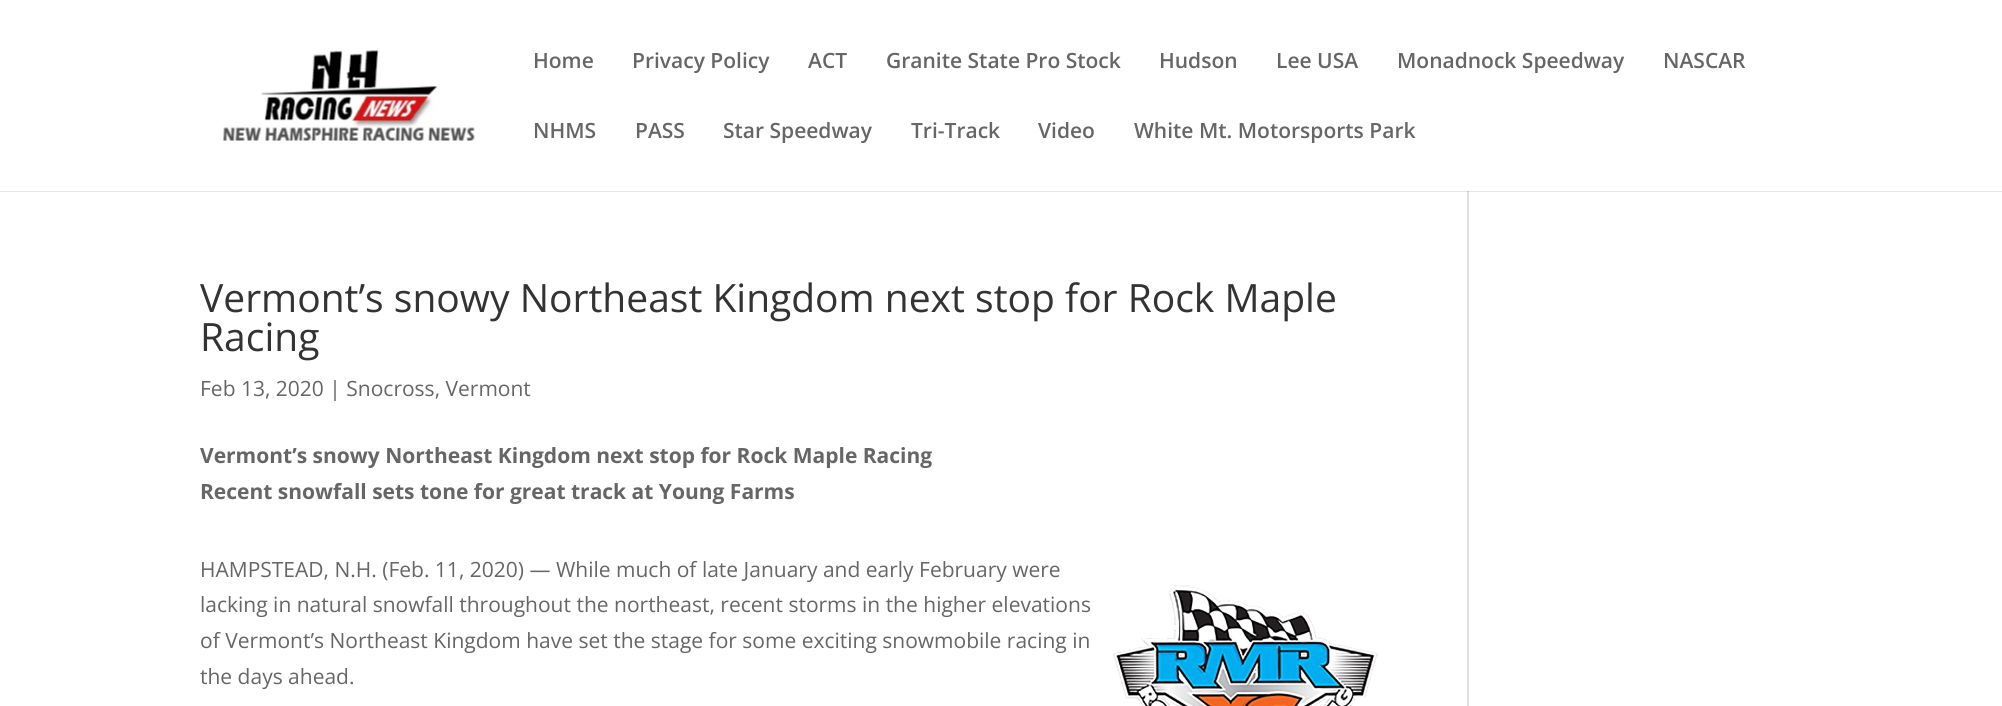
#include <cairo.h>
#include <math.h>
#include <stddef.h>

typedef struct { double x, y; const char *s; } line_t;

static void ink(cairo_t *ctx, unsigned color) {
    cairo_set_source_rgb(ctx, (color >> 16) / 255.0, (color >> 8 & 255) / 255.0, (color & 255) / 255.0);
}

static void paste(cairo_t *ctx, const char *path, double x, double y, double w, double h) {
    cairo_surface_t *image = cairo_image_surface_create_from_png(path);
    cairo_save(ctx);
    cairo_set_source_surface(ctx, image, x, y);
    cairo_rectangle(ctx, x, y, w, h);
    cairo_fill(ctx);
    cairo_restore(ctx);
    cairo_surface_destroy(image);
}

int main(void) {
    cairo_surface_t *surface = cairo_image_surface_create(CAIRO_FORMAT_RGB24, 2002, 706);
    cairo_t *ctx = cairo_create(surface);
    cairo_font_options_t *options = cairo_font_options_create();
    cairo_font_options_set_hint_metrics(options, CAIRO_HINT_METRICS_OFF);
    cairo_font_options_set_hint_style(options, CAIRO_HINT_STYLE_NONE);
    cairo_set_font_options(ctx, options);
    cairo_set_miter_limit(ctx, 4);
    ink(ctx, 0xFFFFFF);
    cairo_paint(ctx);
    ink(ctx, 0xE2E2E2);
    cairo_rectangle(ctx, 1467, 191, 2, 515);
    cairo_fill(ctx);
    cairo_set_source_rgba(ctx, 0, 0, 0, 0.1);
    cairo_new_path(ctx);
    cairo_move_to(ctx, 0, 190);
    cairo_line_to(ctx, 0, 192);
    cairo_line_to(ctx, 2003, 192);
    cairo_line_to(ctx, 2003, 2);
    cairo_line_to(ctx, 2002, 2);
    cairo_line_to(ctx, 2002, 190);
    cairo_close_path(ctx);
    cairo_fill(ctx);
    ink(ctx, 0xFFFFFF);
    cairo_rectangle(ctx, 0, 190, 2002, 1);
    cairo_fill(ctx);
    paste(ctx, "media/1.png", 223, 50, 252, 91);
    cairo_select_font_face(ctx, "Open Sans SemiBold", CAIRO_FONT_SLANT_NORMAL, CAIRO_FONT_WEIGHT_NORMAL);
    cairo_set_font_size(ctx, 21);
    ink(ctx, 0x666666);
    {
        static const line_t items[] = {
            {533, 68, "Home"},
            {632, 68, "Privacy Policy"},
            {808, 68, "ACT"},
            {886, 68, "Granite State Pro Stock"},
            {1159, 68, "Hudson"},
            {1276, 68, "Lee USA"},
            {1397, 68, "Monadnock Speedway"},
            {1663, 68, "NASCAR"},
            {533, 138, "NHMS"},
            {635, 138, "PASS"},
            {723, 138, "Star Speedway"},
            {911, 138, "Tri-Track"},
            {1038, 138, "Video"},
            {1134, 138, "White Mt. Motorsports Park"},
        };
        for (size_t i = 0; i < sizeof items / sizeof *items; i++) {
            cairo_move_to(ctx, items[i].x, items[i].y);
            cairo_show_text(ctx, items[i].s);
        }
    }
    cairo_select_font_face(ctx, "Open Sans", CAIRO_FONT_SLANT_NORMAL, CAIRO_FONT_WEIGHT_NORMAL);
    cairo_set_font_size(ctx, 39);
    ink(ctx, 0x333333);
    cairo_move_to(ctx, 200, 312);
    cairo_show_text(ctx, "Vermont’s snowy Northeast Kingdom next stop for Rock Maple");
    cairo_move_to(ctx, 200, 351);
    cairo_show_text(ctx, "Racing");
    cairo_set_font_size(ctx, 21);
    ink(ctx, 0x666666);
    cairo_move_to(ctx, 200, 396);
    cairo_show_text(ctx, "Feb 13, 2020 | Snocross, Vermont");
    cairo_select_font_face(ctx, "Open Sans", CAIRO_FONT_SLANT_NORMAL, CAIRO_FONT_WEIGHT_BOLD);
    cairo_move_to(ctx, 200, 463);
    cairo_show_text(ctx, "Vermont’s snowy Northeast Kingdom next stop for Rock Maple Racing");
    cairo_move_to(ctx, 200, 499);
    cairo_show_text(ctx, "Recent snowfall sets tone for great track at Young Farms");
    cairo_select_font_face(ctx, "Open Sans", CAIRO_FONT_SLANT_NORMAL, CAIRO_FONT_WEIGHT_NORMAL);
    {
        static const line_t items[] = {
            {200, 577, "HAMPSTEAD, N.H. (Feb. 11, 2020) — While much of late January and early February were"},
            {200, 612, "lacking in natural snowfall throughout the northeast, recent storms in the higher elevations"},
            {200, 648, "of Vermont’s Northeast Kingdom have set the stage for some exciting snowmobile racing in"},
            {200, 684, "the days ahead."},
        };
        for (size_t i = 0; i < sizeof items / sizeof *items; i++) {
            cairo_move_to(ctx, items[i].x, items[i].y);
            cairo_show_text(ctx, items[i].s);
        }
    }
    paste(ctx, "media/2.png", 1113, 585, 265, 121);
    cairo_surface_write_to_png(surface, "image.png");
    cairo_font_options_destroy(options);
    cairo_destroy(ctx);
    cairo_surface_destroy(surface);
    return 0;
}
